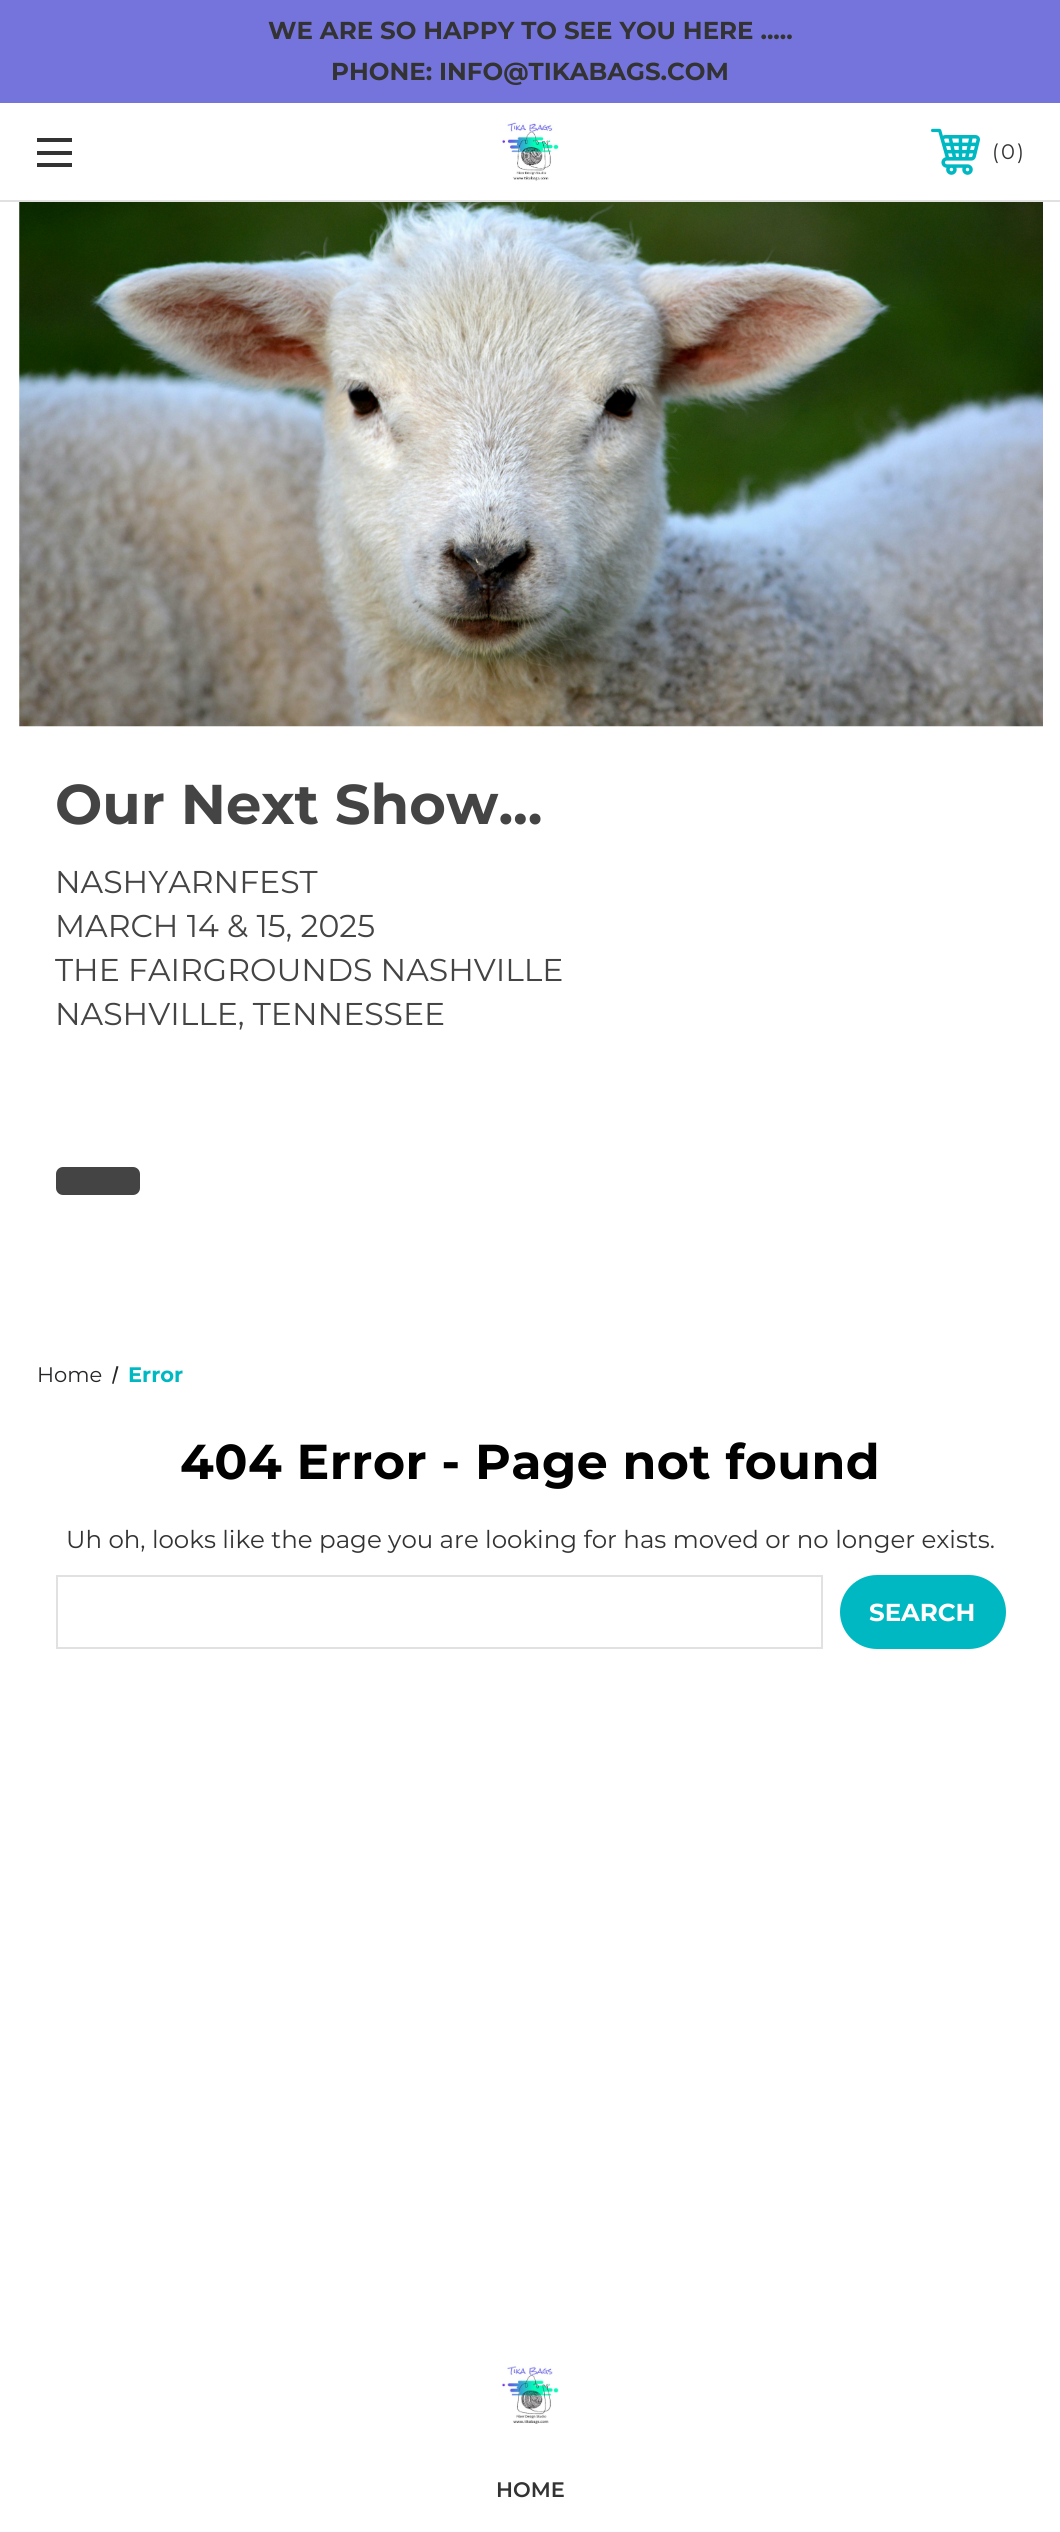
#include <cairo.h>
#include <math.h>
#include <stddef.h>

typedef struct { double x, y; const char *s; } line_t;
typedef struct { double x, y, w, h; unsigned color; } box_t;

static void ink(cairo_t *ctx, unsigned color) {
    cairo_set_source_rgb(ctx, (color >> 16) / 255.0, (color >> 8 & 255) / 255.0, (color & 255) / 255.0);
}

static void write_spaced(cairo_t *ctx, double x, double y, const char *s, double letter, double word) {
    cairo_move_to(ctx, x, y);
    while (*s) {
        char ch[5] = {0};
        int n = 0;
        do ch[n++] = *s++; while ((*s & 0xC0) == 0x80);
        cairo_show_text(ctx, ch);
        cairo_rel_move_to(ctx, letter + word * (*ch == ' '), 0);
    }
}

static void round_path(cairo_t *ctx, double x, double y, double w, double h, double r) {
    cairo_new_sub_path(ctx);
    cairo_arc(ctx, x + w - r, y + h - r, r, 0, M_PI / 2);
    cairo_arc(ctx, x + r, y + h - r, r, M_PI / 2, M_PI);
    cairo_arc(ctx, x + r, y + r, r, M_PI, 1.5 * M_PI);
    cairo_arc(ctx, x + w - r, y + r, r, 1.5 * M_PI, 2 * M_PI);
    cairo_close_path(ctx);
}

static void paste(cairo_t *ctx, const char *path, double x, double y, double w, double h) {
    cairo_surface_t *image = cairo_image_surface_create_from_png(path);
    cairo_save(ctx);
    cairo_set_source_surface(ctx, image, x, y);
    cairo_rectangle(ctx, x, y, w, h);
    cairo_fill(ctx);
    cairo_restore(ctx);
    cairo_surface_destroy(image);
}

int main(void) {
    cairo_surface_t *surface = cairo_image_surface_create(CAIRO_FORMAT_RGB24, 1060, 2532);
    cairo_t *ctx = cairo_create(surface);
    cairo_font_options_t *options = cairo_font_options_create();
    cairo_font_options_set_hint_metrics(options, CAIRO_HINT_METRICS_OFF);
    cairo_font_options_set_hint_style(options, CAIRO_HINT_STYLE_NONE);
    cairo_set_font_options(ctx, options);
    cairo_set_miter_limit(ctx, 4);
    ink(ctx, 0xFFFFFF);
    cairo_paint(ctx);
    ink(ctx, 0x7474DC);
    cairo_rectangle(ctx, 0, 0, 1060, 103);
    cairo_fill(ctx);
    cairo_select_font_face(ctx, "Montserrat", CAIRO_FONT_SLANT_NORMAL, CAIRO_FONT_WEIGHT_BOLD);
    cairo_set_font_size(ctx, 24.5);
    ink(ctx, 0x333333);
    cairo_move_to(ctx, 268, 39);
    cairo_show_text(ctx, "WE ARE SO HAPPY TO SEE YOU HERE .....");
    cairo_move_to(ctx, 331, 80);
    cairo_show_text(ctx, "PHONE: INFO@TIKABAGS.COM");
    {
        static const box_t items[] = {
            {0, 200, 1060, 2, 0xE1E1E1},
            {37, 151, 35, 4, 0x333333},
            {37, 138, 35, 4, 0x333333},
            {37, 163, 35, 4, 0x333333},
        };
        for (size_t i = 0; i < sizeof items / sizeof *items; i++) {
            ink(ctx, items[i].color);
            cairo_rectangle(ctx, items[i].x, items[i].y, items[i].w, items[i].h);
            cairo_fill(ctx);
        }
    }
    paste(ctx, "media/1.png", 502, 122, 57, 59);
    paste(ctx, "media/2.png", 931, 128, 49, 47);
    cairo_select_font_face(ctx, "Montserrat", CAIRO_FONT_SLANT_NORMAL, CAIRO_FONT_WEIGHT_NORMAL);
    cairo_set_font_size(ctx, 21);
    {
        static const line_t items[] = {
            {992, 159, "("},
            {1001, 159, "0"},
            {1017, 159, ")"},
        };
        for (size_t i = 0; i < sizeof items / sizeof *items; i++) {
            cairo_move_to(ctx, items[i].x, items[i].y);
            cairo_show_text(ctx, items[i].s);
        }
    }
    paste(ctx, "media/3.png", 19, 202, 1024, 525);
    cairo_select_font_face(ctx, "Montserrat", CAIRO_FONT_SLANT_NORMAL, CAIRO_FONT_WEIGHT_BOLD);
    cairo_set_font_size(ctx, 56);
    ink(ctx, 0x444444);
    cairo_move_to(ctx, 55, 824);
    cairo_show_text(ctx, "Our Next Show...");
    cairo_select_font_face(ctx, "Montserrat", CAIRO_FONT_SLANT_NORMAL, CAIRO_FONT_WEIGHT_NORMAL);
    cairo_set_font_size(ctx, 31.5);
    {
        static const line_t items[] = {
            {55, 893, "NASHYARNFEST"},
            {55, 937, "MARCH 14 & 15, 2025"},
            {55, 981, "THE FAIRGROUNDS NASHVILLE"},
            {55, 1025, "NASHVILLE, TENNESSEE"},
        };
        for (size_t i = 0; i < sizeof items / sizeof *items; i++) {
            cairo_move_to(ctx, items[i].x, items[i].y);
            cairo_show_text(ctx, items[i].s);
        }
    }
    round_path(ctx, 56, 1167, 84, 28, 7);
    cairo_fill(ctx);
    cairo_set_font_size(ctx, 21);
    ink(ctx, 0x242526);
    cairo_move_to(ctx, 37, 1382);
    cairo_show_text(ctx, "Home");
    cairo_new_path(ctx);
    cairo_move_to(ctx, 116.5, 1366);
    cairo_line_to(ctx, 118.5, 1366.5);
    cairo_line_to(ctx, 113.5, 1384);
    cairo_line_to(ctx, 112, 1383.5);
    cairo_close_path(ctx);
    cairo_fill(ctx);
    cairo_select_font_face(ctx, "Montserrat", CAIRO_FONT_SLANT_NORMAL, CAIRO_FONT_WEIGHT_BOLD);
    ink(ctx, 0x00B8C2);
    cairo_move_to(ctx, 128, 1382);
    cairo_show_text(ctx, "Error");
    cairo_set_font_size(ctx, 49);
    ink(ctx, 0x010101);
    write_spaced(ctx, 180, 1479, "404 Error - Page not found", 0.45, 0);
    cairo_select_font_face(ctx, "Montserrat", CAIRO_FONT_SLANT_NORMAL, CAIRO_FONT_WEIGHT_NORMAL);
    cairo_set_font_size(ctx, 24.5);
    ink(ctx, 0x333333);
    cairo_move_to(ctx, 66, 1548);
    cairo_show_text(ctx, "Uh oh, looks like the page you are looking for has moved or no longer exists.");
    cairo_rectangle(ctx, 57, 1576, 765, 72);
    ink(ctx, 0xE1E1E1);
    cairo_stroke(ctx);
    ink(ctx, 0x00B8C2);
    round_path(ctx, 841, 1576, 164, 72, 36);
    cairo_fill_preserve(ctx);
    cairo_stroke(ctx);
    cairo_select_font_face(ctx, "Montserrat", CAIRO_FONT_SLANT_NORMAL, CAIRO_FONT_WEIGHT_BOLD);
    ink(ctx, 0xFFFFFF);
    cairo_move_to(ctx, 869, 1621);
    cairo_show_text(ctx, "SEARCH");
    paste(ctx, "media/4.png", 502, 2366, 57, 58);
    cairo_select_font_face(ctx, "Montserrat SemiBold", CAIRO_FONT_SLANT_NORMAL, CAIRO_FONT_WEIGHT_NORMAL);
    cairo_set_font_size(ctx, 21);
    ink(ctx, 0x333333);
    cairo_move_to(ctx, 496, 2497);
    cairo_show_text(ctx, "HOME");
    cairo_surface_write_to_png(surface, "image.png");
    cairo_font_options_destroy(options);
    cairo_destroy(ctx);
    cairo_surface_destroy(surface);
    return 0;
}
